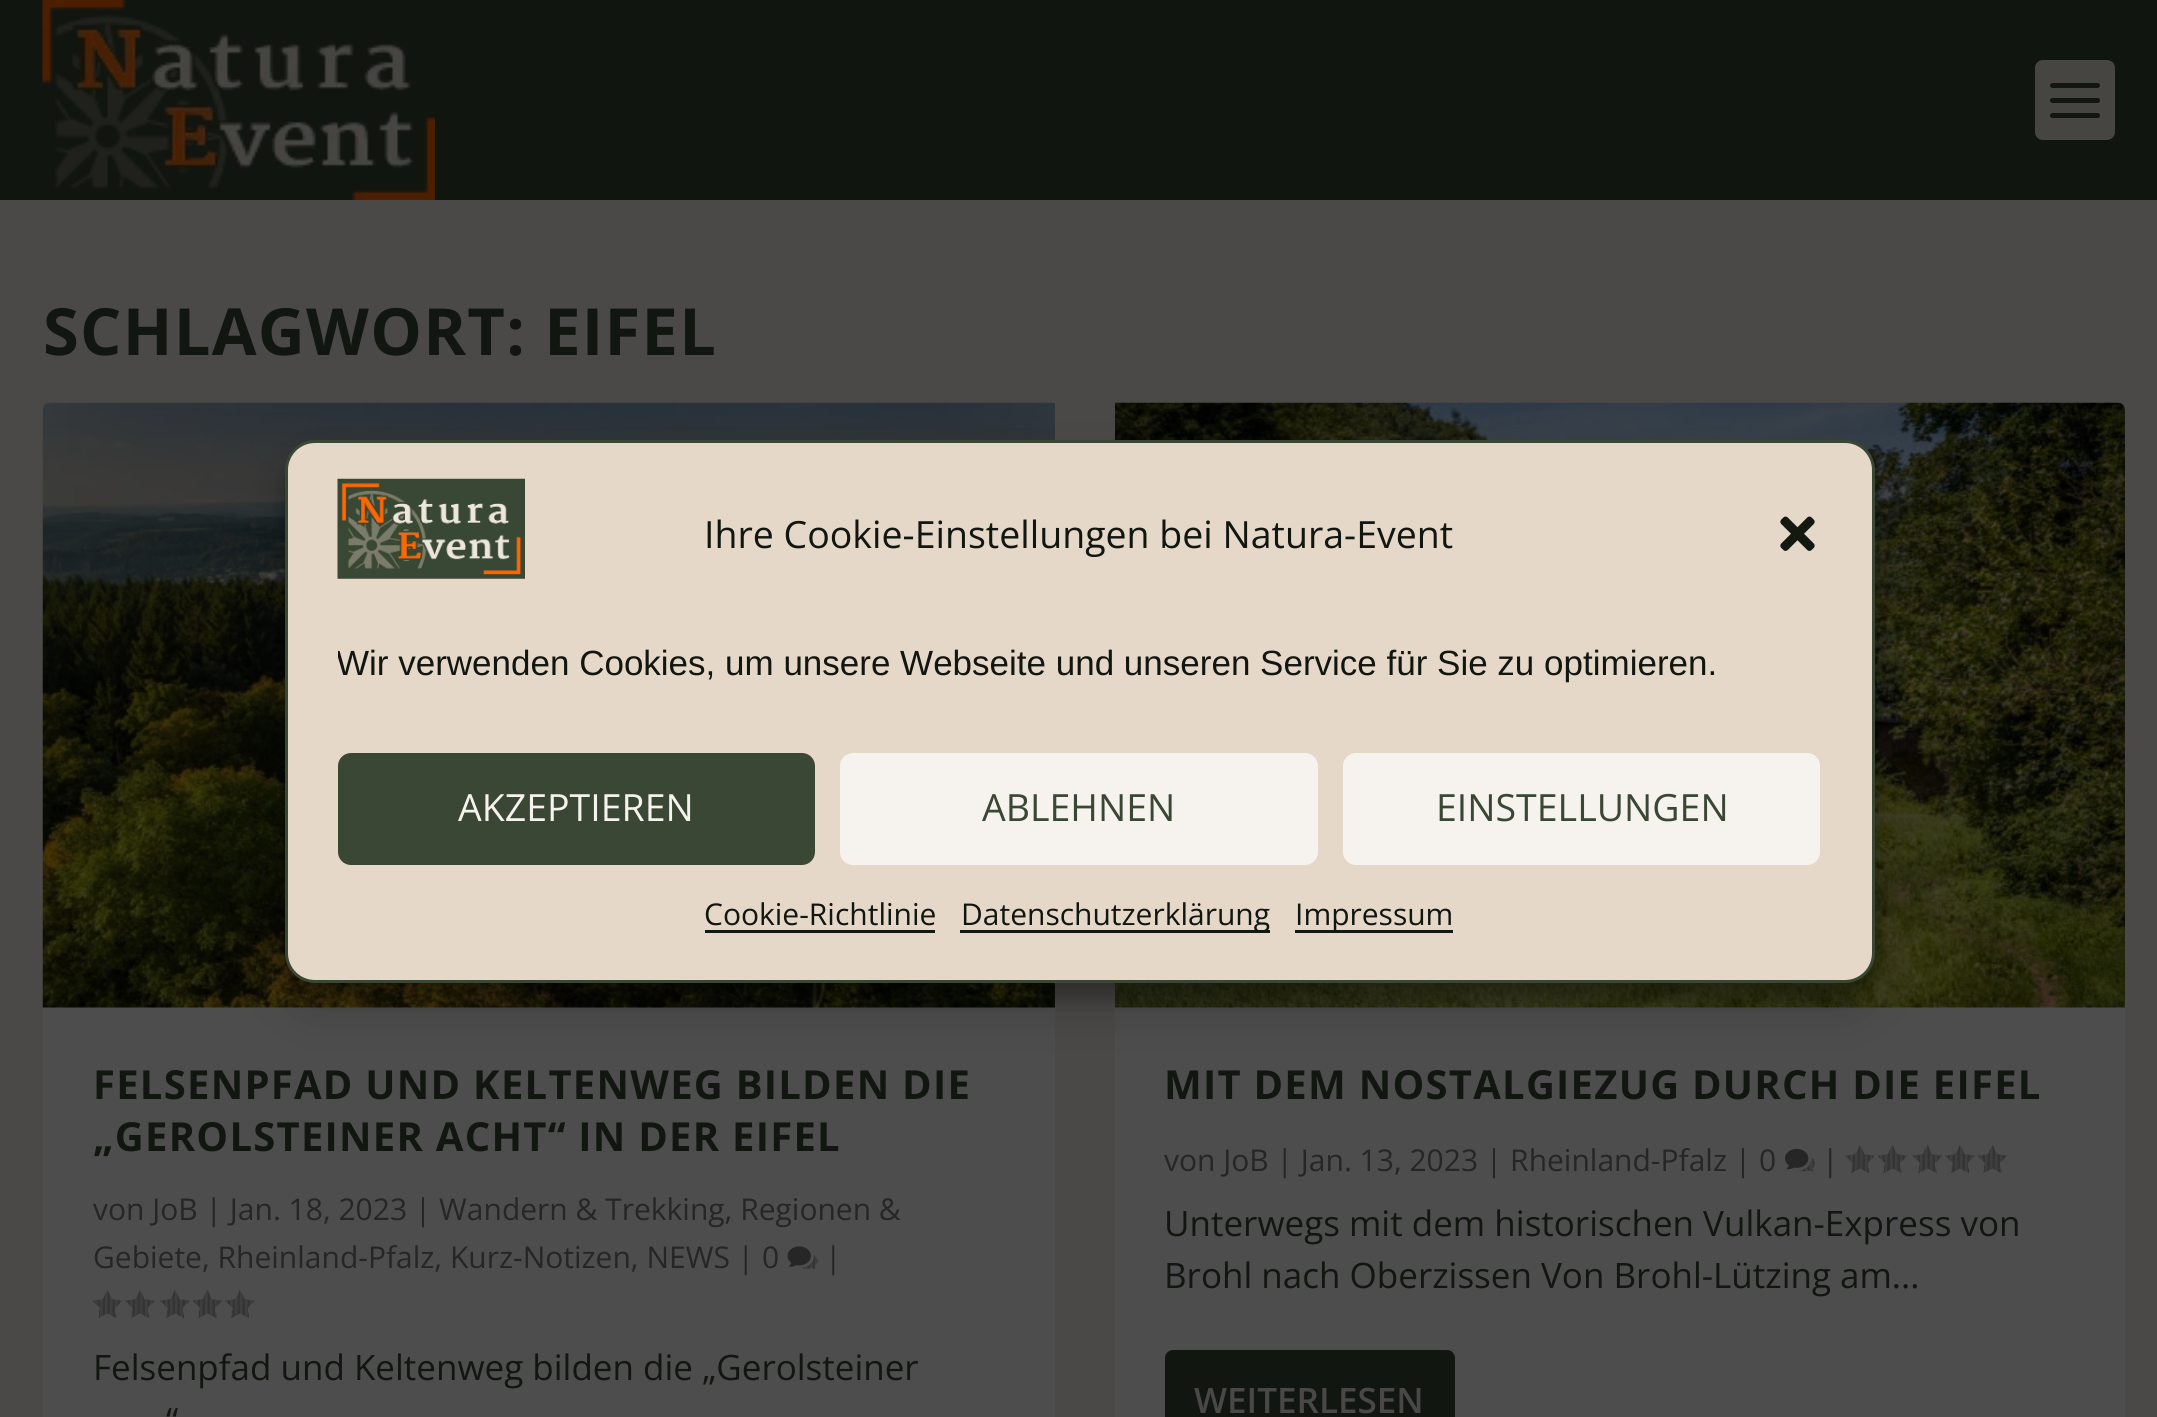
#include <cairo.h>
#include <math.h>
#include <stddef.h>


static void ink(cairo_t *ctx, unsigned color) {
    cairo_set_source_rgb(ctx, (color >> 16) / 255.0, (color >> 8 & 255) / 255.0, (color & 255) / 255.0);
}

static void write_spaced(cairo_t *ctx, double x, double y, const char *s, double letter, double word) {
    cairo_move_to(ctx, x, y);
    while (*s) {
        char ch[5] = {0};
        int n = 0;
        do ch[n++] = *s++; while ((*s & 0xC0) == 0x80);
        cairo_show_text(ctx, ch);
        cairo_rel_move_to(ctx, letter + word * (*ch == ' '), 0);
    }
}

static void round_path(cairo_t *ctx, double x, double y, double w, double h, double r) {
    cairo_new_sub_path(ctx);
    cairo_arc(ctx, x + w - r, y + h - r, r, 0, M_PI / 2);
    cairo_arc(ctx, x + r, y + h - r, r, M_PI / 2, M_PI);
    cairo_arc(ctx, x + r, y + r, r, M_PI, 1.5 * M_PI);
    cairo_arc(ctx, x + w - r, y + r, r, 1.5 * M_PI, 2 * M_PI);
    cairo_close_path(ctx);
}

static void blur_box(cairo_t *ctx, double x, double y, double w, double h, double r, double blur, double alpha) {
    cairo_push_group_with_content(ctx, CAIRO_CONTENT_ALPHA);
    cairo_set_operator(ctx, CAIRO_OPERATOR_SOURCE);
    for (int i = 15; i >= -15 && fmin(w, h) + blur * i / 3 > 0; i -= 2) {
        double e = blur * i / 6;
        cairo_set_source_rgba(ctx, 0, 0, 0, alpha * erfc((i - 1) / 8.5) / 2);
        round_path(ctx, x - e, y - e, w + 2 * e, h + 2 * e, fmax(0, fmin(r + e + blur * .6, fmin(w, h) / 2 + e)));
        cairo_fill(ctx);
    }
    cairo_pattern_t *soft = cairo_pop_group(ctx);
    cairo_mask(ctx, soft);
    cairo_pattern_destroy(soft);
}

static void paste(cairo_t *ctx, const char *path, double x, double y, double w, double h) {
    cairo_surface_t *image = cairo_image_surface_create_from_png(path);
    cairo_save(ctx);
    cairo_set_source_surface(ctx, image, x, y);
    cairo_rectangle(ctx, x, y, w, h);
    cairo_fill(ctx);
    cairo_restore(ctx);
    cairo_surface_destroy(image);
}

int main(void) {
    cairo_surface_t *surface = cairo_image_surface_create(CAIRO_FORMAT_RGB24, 2157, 1417);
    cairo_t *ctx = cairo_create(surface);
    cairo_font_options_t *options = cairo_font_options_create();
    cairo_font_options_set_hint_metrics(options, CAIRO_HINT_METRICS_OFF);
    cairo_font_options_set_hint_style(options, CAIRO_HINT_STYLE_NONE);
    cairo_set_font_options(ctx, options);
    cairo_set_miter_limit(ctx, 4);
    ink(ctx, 0x4A4947);
    cairo_paint(ctx);
    ink(ctx, 0x111510);
    cairo_rectangle(ctx, 0, 0, 2157, 200);
    cairo_fill(ctx);
    paste(ctx, "media/1.png", 42, 0, 393, 200);
    ink(ctx, 0x474542);
    round_path(ctx, 2035, 60, 80, 80, 8);
    cairo_fill(ctx);
    ink(ctx, 0x121610);
    round_path(ctx, 2050, 83, 50, 5, 2.5);
    cairo_fill(ctx);
    round_path(ctx, 2050, 98, 50, 5, 2.5);
    cairo_fill(ctx);
    round_path(ctx, 2050, 113, 50, 5, 2.5);
    cairo_fill(ctx);
    cairo_select_font_face(ctx, "Open Sans", CAIRO_FONT_SLANT_NORMAL, CAIRO_FONT_WEIGHT_BOLD);
    cairo_set_font_size(ctx, 65);
    write_spaced(ctx, 43, 355, "SCHLAGWORT: EIFEL", 1.25, 0);
    ink(ctx, 0x4D4D4D);
    round_path(ctx, 43, 403, 1012, 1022, 8);
    cairo_fill(ctx);
    paste(ctx, "media/2.png", 42, 402, 1013, 606);
    cairo_set_font_size(ctx, 40);
    ink(ctx, 0x121610);
    write_spaced(ctx, 93, 1099, "FELSENPFAD UND KELTENWEG BILDEN DIE", 1.25, 0);
    write_spaced(ctx, 93, 1151, "„GEROLSTEINER ACHT“ IN DER EIFEL", 1.25, 0);
    cairo_select_font_face(ctx, "Open Sans", CAIRO_FONT_SLANT_NORMAL, CAIRO_FONT_WEIGHT_NORMAL);
    cairo_set_font_size(ctx, 30);
    ink(ctx, 0x262626);
    cairo_move_to(ctx, 93, 1220);
    cairo_show_text(ctx, "von JoB | Jan. 18, 2023 | Wandern & Trekking, Regionen &");
    cairo_move_to(ctx, 93, 1268);
    cairo_show_text(ctx, "Gebiete, Rheinland-Pfalz, Kurz-Notizen, NEWS | 0");
    paste(ctx, "media/3.png", 787, 1246, 31, 23);
    cairo_move_to(ctx, 825, 1268);
    cairo_show_text(ctx, "|");
    paste(ctx, "media/4.png", 92, 1290, 31, 29);
    paste(ctx, "media/5.png", 125, 1290, 30, 29);
    paste(ctx, "media/5.png", 160, 1290, 30, 29);
    paste(ctx, "media/4.png", 192, 1290, 31, 29);
    paste(ctx, "media/5.png", 225, 1290, 30, 29);
    cairo_set_font_size(ctx, 35);
    ink(ctx, 0x121610);
    cairo_move_to(ctx, 93, 1380);
    cairo_show_text(ctx, "Felsenpfad und Keltenweg bilden die „Gerolsteiner");
    cairo_move_to(ctx, 166, 1433);
    cairo_show_text(ctx, "“");
    ink(ctx, 0x4D4D4D);
    round_path(ctx, 1115, 403, 1010, 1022, 8);
    cairo_fill(ctx);
    paste(ctx, "media/6.png", 1115, 402, 1010, 606);
    cairo_select_font_face(ctx, "Open Sans", CAIRO_FONT_SLANT_NORMAL, CAIRO_FONT_WEIGHT_BOLD);
    cairo_set_font_size(ctx, 40);
    ink(ctx, 0x121610);
    write_spaced(ctx, 1164, 1099, "MIT DEM NOSTALGIEZUG DURCH DIE EIFEL", 1.25, 0);
    cairo_select_font_face(ctx, "Open Sans", CAIRO_FONT_SLANT_NORMAL, CAIRO_FONT_WEIGHT_NORMAL);
    cairo_set_font_size(ctx, 30);
    ink(ctx, 0x262626);
    cairo_move_to(ctx, 1164, 1171);
    cairo_show_text(ctx, "von JoB | Jan. 13, 2023 | Rheinland-Pfalz | 0");
    paste(ctx, "media/7.png", 1785, 1148, 30, 24);
    cairo_move_to(ctx, 1822, 1171);
    cairo_show_text(ctx, "|");
    paste(ctx, "media/5.png", 1845, 1145, 30, 29);
    paste(ctx, "media/4.png", 1877, 1145, 31, 29);
    paste(ctx, "media/4.png", 1912, 1145, 31, 29);
    paste(ctx, "media/5.png", 1945, 1145, 30, 29);
    paste(ctx, "media/4.png", 1977, 1145, 31, 29);
    cairo_set_font_size(ctx, 35);
    ink(ctx, 0x121610);
    cairo_move_to(ctx, 1164, 1236);
    cairo_show_text(ctx, "Unterwegs mit dem historischen Vulkan-Express von");
    cairo_move_to(ctx, 1164, 1288);
    cairo_show_text(ctx, "Brohl nach Oberzissen Von Brohl-Lützing am...");
    round_path(ctx, 1165, 1350, 290, 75, 8);
    cairo_fill(ctx);
    cairo_select_font_face(ctx, "Open Sans SemiBold", CAIRO_FONT_SLANT_NORMAL, CAIRO_FONT_WEIGHT_NORMAL);
    ink(ctx, 0x494847);
    cairo_move_to(ctx, 1194, 1413);
    cairo_show_text(ctx, "WEITERLESEN");
    ink(ctx, 0x000000);
    blur_box(ctx, 285, 455, 1590, 543, 30, 7.5, 0.23);
    blur_box(ctx, 285, 465, 1590, 543, 30, 25, 0.19);
    ink(ctx, 0xE5D8C9);
    round_path(ctx, 286.5, 441.5, 1587, 540, 28.5);
    cairo_fill_preserve(ctx);
    ink(ctx, 0x394734);
    cairo_set_line_width(ctx, 3);
    cairo_stroke(ctx);
    paste(ctx, "media/8.png", 337, 478, 188, 101);
    cairo_select_font_face(ctx, "Open Sans", CAIRO_FONT_SLANT_NORMAL, CAIRO_FONT_WEIGHT_NORMAL);
    cairo_set_font_size(ctx, 37.5);
    ink(ctx, 0x121610);
    cairo_move_to(ctx, 704, 548);
    cairo_show_text(ctx, "Ihre Cookie-Einstellungen bei Natura-Event");
    paste(ctx, "media/9.png", 1780, 516, 35, 35);
    cairo_save(ctx);
    cairo_rectangle(ctx, 338, 643, 1485, 60);
    cairo_clip(ctx);
    cairo_select_font_face(ctx, "Liberation Sans", CAIRO_FONT_SLANT_NORMAL, CAIRO_FONT_WEIGHT_NORMAL);
    cairo_set_font_size(ctx, 35);
    cairo_move_to(ctx, 336, 675);
    cairo_show_text(ctx, "Wir verwenden Cookies, um unsere Webseite und unseren Service für Sie zu optimieren.");
    cairo_restore(ctx);
    ink(ctx, 0x394734);
    round_path(ctx, 339.5, 754.5, 474, 109, 11.5);
    cairo_fill_preserve(ctx);
    cairo_stroke(ctx);
    ink(ctx, 0xF6F2ED);
    cairo_move_to(ctx, 458, 821);
    cairo_show_text(ctx, "AKZEPTIEREN");
    round_path(ctx, 841.5, 754.5, 475, 109, 11.5);
    cairo_fill_preserve(ctx);
    cairo_stroke(ctx);
    ink(ctx, 0x394734);
    cairo_move_to(ctx, 982, 821);
    cairo_show_text(ctx, "ABLEHNEN");
    ink(ctx, 0xF6F2ED);
    round_path(ctx, 1344.5, 754.5, 474, 109, 11.5);
    cairo_fill_preserve(ctx);
    cairo_stroke(ctx);
    ink(ctx, 0x394734);
    cairo_move_to(ctx, 1436, 821);
    cairo_show_text(ctx, "EINSTELLUNGEN");
    cairo_set_font_size(ctx, 30);
    ink(ctx, 0x121610);
    cairo_move_to(ctx, 704, 925);
    cairo_show_text(ctx, "Cookie-Richtlinie");
    ink(ctx, 0x131811);
    cairo_rectangle(ctx, 705, 930, 230, 3);
    cairo_fill(ctx);
    cairo_rectangle(ctx, 960, 930, 310, 3);
    cairo_fill(ctx);
    ink(ctx, 0x121610);
    cairo_move_to(ctx, 961, 925);
    cairo_show_text(ctx, "Datenschutzerklärung");
    ink(ctx, 0x131811);
    cairo_rectangle(ctx, 1295, 930, 158, 3);
    cairo_fill(ctx);
    ink(ctx, 0x121610);
    cairo_move_to(ctx, 1295, 925);
    cairo_show_text(ctx, "Impressum");
    cairo_surface_write_to_png(surface, "image.png");
    cairo_font_options_destroy(options);
    cairo_destroy(ctx);
    cairo_surface_destroy(surface);
    return 0;
}
